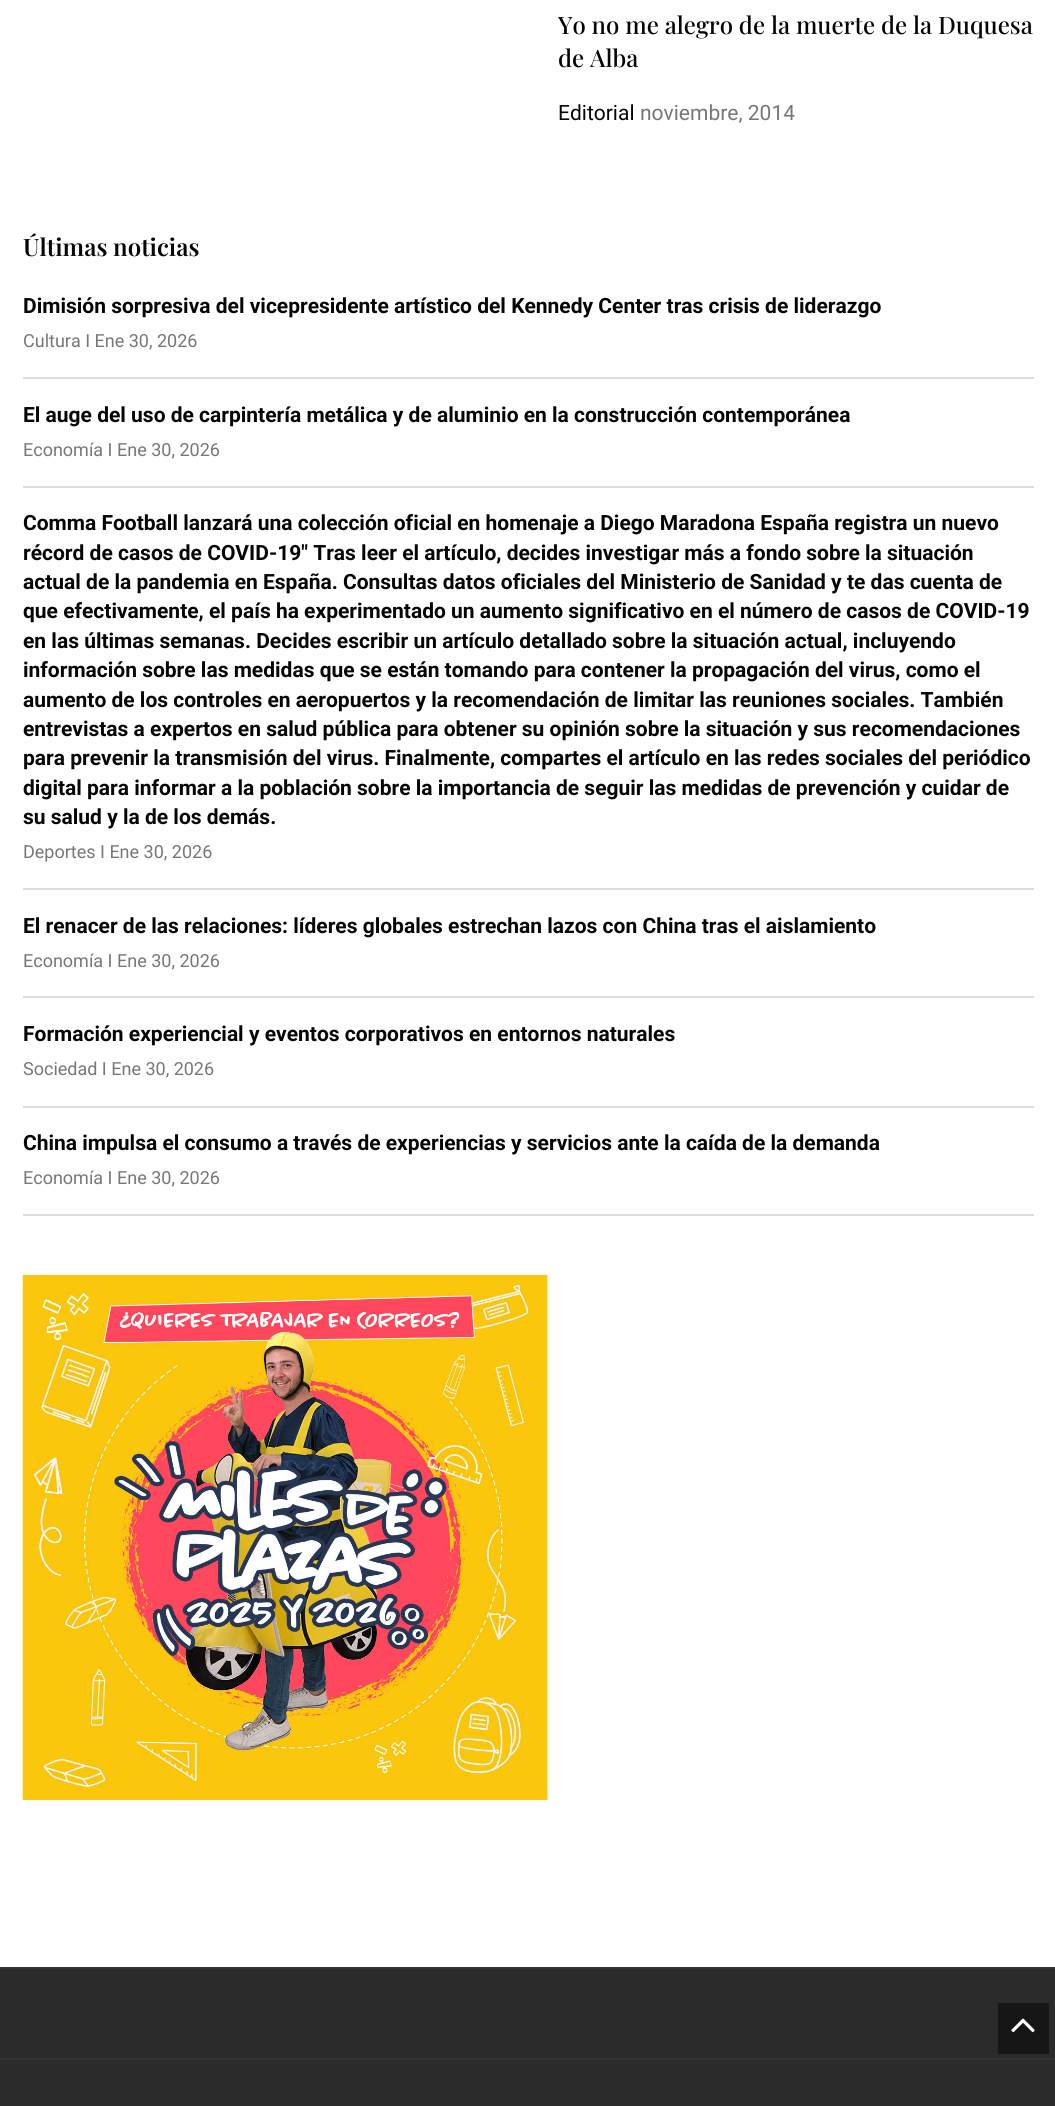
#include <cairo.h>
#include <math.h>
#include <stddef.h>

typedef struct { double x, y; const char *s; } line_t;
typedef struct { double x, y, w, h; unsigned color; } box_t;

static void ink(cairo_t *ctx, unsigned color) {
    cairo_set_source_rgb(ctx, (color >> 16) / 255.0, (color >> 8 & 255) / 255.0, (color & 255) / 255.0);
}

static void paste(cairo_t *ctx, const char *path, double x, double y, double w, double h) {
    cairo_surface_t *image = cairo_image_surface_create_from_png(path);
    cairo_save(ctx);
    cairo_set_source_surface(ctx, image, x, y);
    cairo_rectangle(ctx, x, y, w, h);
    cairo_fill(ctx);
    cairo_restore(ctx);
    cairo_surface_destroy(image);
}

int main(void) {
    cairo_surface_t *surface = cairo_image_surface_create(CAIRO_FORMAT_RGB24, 1055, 2106);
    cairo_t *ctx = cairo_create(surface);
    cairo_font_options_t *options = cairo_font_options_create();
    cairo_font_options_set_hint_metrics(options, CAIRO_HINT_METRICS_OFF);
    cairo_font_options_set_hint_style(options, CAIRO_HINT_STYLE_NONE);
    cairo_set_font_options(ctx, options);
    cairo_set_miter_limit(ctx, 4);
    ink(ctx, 0xFFFFFF);
    cairo_paint(ctx);
    cairo_select_font_face(ctx, "Playfair Display Medium", CAIRO_FONT_SLANT_NORMAL, CAIRO_FONT_WEIGHT_NORMAL);
    cairo_set_font_size(ctx, 24);
    ink(ctx, 0x050505);
    cairo_move_to(ctx, 558, 34);
    cairo_show_text(ctx, "Yo no me alegro de la muerte de la Duquesa");
    cairo_move_to(ctx, 558, 67);
    cairo_show_text(ctx, "de Alba");
    cairo_select_font_face(ctx, "Roboto", CAIRO_FONT_SLANT_NORMAL, CAIRO_FONT_WEIGHT_NORMAL);
    cairo_set_font_size(ctx, 21);
    cairo_move_to(ctx, 558, 120);
    cairo_show_text(ctx, "Editorial");
    ink(ctx, 0x777777);
    cairo_move_to(ctx, 640, 120);
    cairo_show_text(ctx, "noviembre, 2014");
    cairo_select_font_face(ctx, "Playfair Display SemiBold", CAIRO_FONT_SLANT_NORMAL, CAIRO_FONT_WEIGHT_NORMAL);
    cairo_set_font_size(ctx, 24);
    ink(ctx, 0x050505);
    cairo_move_to(ctx, 23, 256);
    cairo_show_text(ctx, "Últimas noticias");
    ink(ctx, 0xDDDDDD);
    cairo_rectangle(ctx, 23, 377, 1011, 2);
    cairo_fill(ctx);
    cairo_select_font_face(ctx, "Roboto", CAIRO_FONT_SLANT_NORMAL, CAIRO_FONT_WEIGHT_BOLD);
    cairo_set_font_size(ctx, 21);
    ink(ctx, 0x050505);
    cairo_move_to(ctx, 23, 313);
    cairo_show_text(ctx, "Dimisión sorpresiva del vicepresidente artístico del Kennedy Center tras crisis de liderazgo");
    cairo_select_font_face(ctx, "Roboto", CAIRO_FONT_SLANT_NORMAL, CAIRO_FONT_WEIGHT_NORMAL);
    cairo_set_font_size(ctx, 18);
    ink(ctx, 0x777777);
    cairo_move_to(ctx, 23, 347);
    cairo_show_text(ctx, "Cultura I Ene 30, 2026");
    ink(ctx, 0xDDDDDD);
    cairo_rectangle(ctx, 23, 486, 1011, 2);
    cairo_fill(ctx);
    cairo_select_font_face(ctx, "Roboto", CAIRO_FONT_SLANT_NORMAL, CAIRO_FONT_WEIGHT_BOLD);
    cairo_set_font_size(ctx, 21);
    ink(ctx, 0x050505);
    cairo_move_to(ctx, 23, 422);
    cairo_show_text(ctx, "El auge del uso de carpintería metálica y de aluminio en la construcción contemporánea");
    cairo_select_font_face(ctx, "Roboto", CAIRO_FONT_SLANT_NORMAL, CAIRO_FONT_WEIGHT_NORMAL);
    cairo_set_font_size(ctx, 18);
    ink(ctx, 0x777777);
    cairo_move_to(ctx, 23, 456);
    cairo_show_text(ctx, "Economía I Ene 30, 2026");
    ink(ctx, 0xDDDDDD);
    cairo_rectangle(ctx, 23, 888, 1011, 2);
    cairo_fill(ctx);
    cairo_select_font_face(ctx, "Roboto", CAIRO_FONT_SLANT_NORMAL, CAIRO_FONT_WEIGHT_BOLD);
    cairo_set_font_size(ctx, 21);
    ink(ctx, 0x050505);
    {
        static const line_t items[] = {
            {23, 530, "Comma Football lanzará una colección oficial en homenaje a Diego Maradona España registra un nuevo"},
            {23, 560, "récord de casos de COVID-19″ Tras leer el artículo, decides investigar más a fondo sobre la situación"},
            {23, 589, "actual de la pandemia en España. Consultas datos oficiales del Ministerio de Sanidad y te das cuenta de"},
            {23, 618, "que efectivamente, el país ha experimentado un aumento significativo en el número de casos de COVID-19"},
            {23, 648, "en las últimas semanas. Decides escribir un artículo detallado sobre la situación actual, incluyendo"},
            {23, 677, "información sobre las medidas que se están tomando para contener la propagación del virus, como el"},
            {23, 707, "aumento de los controles en aeropuertos y la recomendación de limitar las reuniones sociales. También"},
            {23, 736, "entrevistas a expertos en salud pública para obtener su opinión sobre la situación y sus recomendaciones"},
            {23, 765, "para prevenir la transmisión del virus. Finalmente, compartes el artículo en las redes sociales del periódico"},
            {23, 795, "digital para informar a la población sobre la importancia de seguir las medidas de prevención y cuidar de"},
            {23, 824, "su salud y la de los demás."},
        };
        for (size_t i = 0; i < sizeof items / sizeof *items; i++) {
            cairo_move_to(ctx, items[i].x, items[i].y);
            cairo_show_text(ctx, items[i].s);
        }
    }
    cairo_select_font_face(ctx, "Roboto", CAIRO_FONT_SLANT_NORMAL, CAIRO_FONT_WEIGHT_NORMAL);
    cairo_set_font_size(ctx, 18);
    ink(ctx, 0x777777);
    cairo_move_to(ctx, 23, 858);
    cairo_show_text(ctx, "Deportes I Ene 30, 2026");
    ink(ctx, 0xDDDDDD);
    cairo_rectangle(ctx, 23, 996, 1011, 2);
    cairo_fill(ctx);
    cairo_select_font_face(ctx, "Roboto", CAIRO_FONT_SLANT_NORMAL, CAIRO_FONT_WEIGHT_BOLD);
    cairo_set_font_size(ctx, 21);
    ink(ctx, 0x050505);
    cairo_move_to(ctx, 23, 933);
    cairo_show_text(ctx, "El renacer de las relaciones: líderes globales estrechan lazos con China tras el aislamiento");
    cairo_select_font_face(ctx, "Roboto", CAIRO_FONT_SLANT_NORMAL, CAIRO_FONT_WEIGHT_NORMAL);
    cairo_set_font_size(ctx, 18);
    ink(ctx, 0x777777);
    cairo_move_to(ctx, 23, 967);
    cairo_show_text(ctx, "Economía I Ene 30, 2026");
    ink(ctx, 0xDDDDDD);
    cairo_rectangle(ctx, 23, 1106, 1011, 2);
    cairo_fill(ctx);
    cairo_select_font_face(ctx, "Roboto", CAIRO_FONT_SLANT_NORMAL, CAIRO_FONT_WEIGHT_BOLD);
    cairo_set_font_size(ctx, 21);
    ink(ctx, 0x050505);
    cairo_move_to(ctx, 23, 1041);
    cairo_show_text(ctx, "Formación experiencial y eventos corporativos en entornos naturales");
    cairo_select_font_face(ctx, "Roboto", CAIRO_FONT_SLANT_NORMAL, CAIRO_FONT_WEIGHT_NORMAL);
    cairo_set_font_size(ctx, 18);
    ink(ctx, 0x777777);
    cairo_move_to(ctx, 23, 1075);
    cairo_show_text(ctx, "Sociedad I Ene 30, 2026");
    ink(ctx, 0xDDDDDD);
    cairo_rectangle(ctx, 23, 1214, 1011, 2);
    cairo_fill(ctx);
    cairo_select_font_face(ctx, "Roboto", CAIRO_FONT_SLANT_NORMAL, CAIRO_FONT_WEIGHT_BOLD);
    cairo_set_font_size(ctx, 21);
    ink(ctx, 0x050505);
    cairo_move_to(ctx, 23, 1150);
    cairo_show_text(ctx, "China impulsa el consumo a través de experiencias y servicios ante la caída de la demanda");
    cairo_select_font_face(ctx, "Roboto", CAIRO_FONT_SLANT_NORMAL, CAIRO_FONT_WEIGHT_NORMAL);
    cairo_set_font_size(ctx, 18);
    ink(ctx, 0x777777);
    cairo_move_to(ctx, 23, 1184);
    cairo_show_text(ctx, "Economía I Ene 30, 2026");
    paste(ctx, "media/1.png", 22, 1275, 526, 525);
    {
        static const box_t items[] = {
            {0, 1969, 1055, 89, 0x2B2B2B},
            {0, 1967, 1055, 2, 0x333333},
            {0, 2058, 1055, 2, 0x333333},
            {998, 2003, 51, 51, 0x161616},
        };
        for (size_t i = 0; i < sizeof items / sizeof *items; i++) {
            ink(ctx, items[i].color);
            cairo_rectangle(ctx, items[i].x, items[i].y, items[i].w, items[i].h);
            cairo_fill(ctx);
        }
    }
    paste(ctx, "media/2.png", 1011, 2018, 24, 15);
    ink(ctx, 0x2B2B2B);
    cairo_rectangle(ctx, 0, 2060, 1055, 46);
    cairo_fill(ctx);
    cairo_surface_write_to_png(surface, "image.png");
    cairo_font_options_destroy(options);
    cairo_destroy(ctx);
    cairo_surface_destroy(surface);
    return 0;
}
